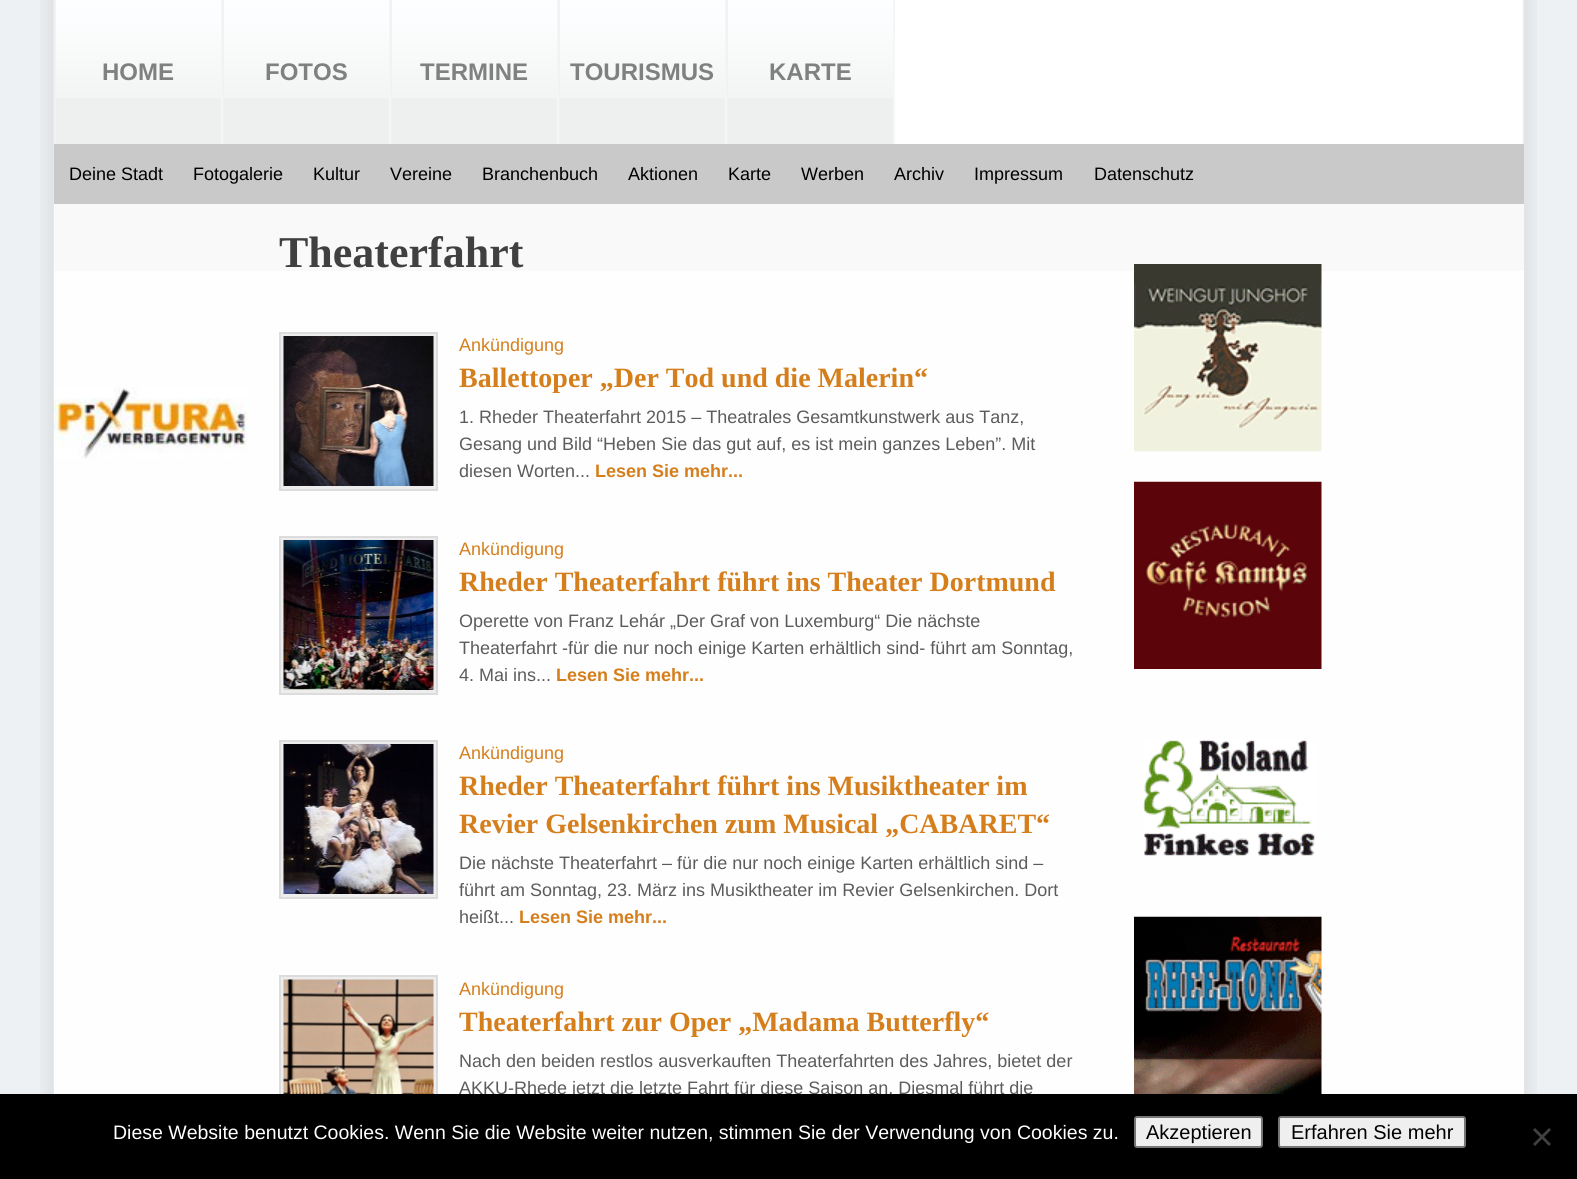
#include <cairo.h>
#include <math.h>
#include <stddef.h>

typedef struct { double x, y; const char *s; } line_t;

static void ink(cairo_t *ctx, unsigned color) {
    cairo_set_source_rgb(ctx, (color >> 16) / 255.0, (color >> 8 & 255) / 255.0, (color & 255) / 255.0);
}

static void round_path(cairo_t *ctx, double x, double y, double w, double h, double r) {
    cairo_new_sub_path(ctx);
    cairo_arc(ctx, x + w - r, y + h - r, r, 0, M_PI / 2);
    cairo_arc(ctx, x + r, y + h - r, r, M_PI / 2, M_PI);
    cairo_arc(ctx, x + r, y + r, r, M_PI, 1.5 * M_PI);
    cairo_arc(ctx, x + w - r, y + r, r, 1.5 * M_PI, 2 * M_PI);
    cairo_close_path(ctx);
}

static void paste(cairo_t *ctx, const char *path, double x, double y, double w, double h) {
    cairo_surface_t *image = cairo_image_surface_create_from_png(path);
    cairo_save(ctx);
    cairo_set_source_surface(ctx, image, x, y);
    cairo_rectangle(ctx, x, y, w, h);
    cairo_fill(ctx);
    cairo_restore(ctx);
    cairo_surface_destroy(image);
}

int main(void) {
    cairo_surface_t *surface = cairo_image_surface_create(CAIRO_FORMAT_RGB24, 1577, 1179);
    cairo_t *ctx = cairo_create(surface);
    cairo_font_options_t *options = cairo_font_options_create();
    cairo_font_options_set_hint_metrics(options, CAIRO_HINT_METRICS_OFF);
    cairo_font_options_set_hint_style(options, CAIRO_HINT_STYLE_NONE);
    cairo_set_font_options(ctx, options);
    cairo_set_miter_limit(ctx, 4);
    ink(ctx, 0xEEF1F4);
    cairo_paint(ctx);
    paste(ctx, "media/1.png", 40, 0, 1497, 1094);
    ink(ctx, 0xEEF0F0);
    cairo_rectangle(ctx, 56, 98, 837, 46);
    cairo_fill(ctx);
    paste(ctx, "media/2.png", 56, 0, 837, 98);
    ink(ctx, 0xF6F6F7);
    cairo_rectangle(ctx, 221, 0, 1, 144);
    cairo_fill(ctx);
    ink(ctx, 0xF2F2F2);
    cairo_rectangle(ctx, 54, 0, 2, 144);
    cairo_fill(ctx);
    cairo_select_font_face(ctx, "Liberation Sans", CAIRO_FONT_SLANT_NORMAL, CAIRO_FONT_WEIGHT_BOLD);
    cairo_set_font_size(ctx, 24);
    ink(ctx, 0x808080);
    cairo_move_to(ctx, 102, 80);
    cairo_show_text(ctx, "HOME");
    ink(ctx, 0xF6F6F7);
    cairo_rectangle(ctx, 389, 0, 1, 144);
    cairo_fill(ctx);
    ink(ctx, 0xF2F2F2);
    cairo_rectangle(ctx, 222, 0, 2, 144);
    cairo_fill(ctx);
    ink(ctx, 0x808080);
    cairo_move_to(ctx, 265, 80);
    cairo_show_text(ctx, "FOTOS");
    ink(ctx, 0xF6F6F7);
    cairo_rectangle(ctx, 557, 0, 1, 144);
    cairo_fill(ctx);
    ink(ctx, 0xF2F2F2);
    cairo_rectangle(ctx, 390, 0, 2, 144);
    cairo_fill(ctx);
    ink(ctx, 0x808080);
    cairo_move_to(ctx, 420, 80);
    cairo_show_text(ctx, "TERMINE");
    ink(ctx, 0xF6F6F7);
    cairo_rectangle(ctx, 725, 0, 1, 144);
    cairo_fill(ctx);
    ink(ctx, 0xF2F2F2);
    cairo_rectangle(ctx, 558, 0, 2, 144);
    cairo_fill(ctx);
    ink(ctx, 0x808080);
    cairo_move_to(ctx, 570, 80);
    cairo_show_text(ctx, "TOURISMUS");
    ink(ctx, 0xF6F6F7);
    cairo_rectangle(ctx, 893, 0, 2, 144);
    cairo_fill(ctx);
    ink(ctx, 0xF2F2F2);
    cairo_rectangle(ctx, 726, 0, 2, 144);
    cairo_fill(ctx);
    ink(ctx, 0x808080);
    cairo_move_to(ctx, 769, 80);
    cairo_show_text(ctx, "KARTE");
    ink(ctx, 0xC9C9C9);
    cairo_rectangle(ctx, 54, 144, 1470, 60);
    cairo_fill(ctx);
    cairo_select_font_face(ctx, "Liberation Sans", CAIRO_FONT_SLANT_NORMAL, CAIRO_FONT_WEIGHT_NORMAL);
    cairo_set_font_size(ctx, 18);
    ink(ctx, 0x000000);
    {
        static const line_t items[] = {
            {69, 180, "Deine Stadt"},
            {193, 180, "Fotogalerie"},
            {313, 180, "Kultur"},
            {390, 180, "Vereine"},
            {482, 180, "Branchenbuch"},
            {628, 180, "Aktionen"},
            {728, 180, "Karte"},
            {801, 180, "Werben"},
            {894, 180, "Archiv"},
            {974, 180, "Impressum"},
            {1094, 180, "Datenschutz"},
        };
        for (size_t i = 0; i < sizeof items / sizeof *items; i++) {
            cairo_move_to(ctx, items[i].x, items[i].y);
            cairo_show_text(ctx, items[i].s);
        }
    }
    ink(ctx, 0xFEFEFE);
    cairo_rectangle(ctx, 54, 271, 1470, 823);
    cairo_fill(ctx);
    ink(ctx, 0xF9F9F9);
    cairo_rectangle(ctx, 55, 204, 1469, 67);
    cairo_fill(ctx);
    paste(ctx, "media/3.png", 54, 387, 194, 72);
    cairo_select_font_face(ctx, "Liberation Serif", CAIRO_FONT_SLANT_NORMAL, CAIRO_FONT_WEIGHT_BOLD);
    cairo_set_font_size(ctx, 44);
    ink(ctx, 0x404040);
    cairo_move_to(ctx, 279, 267);
    cairo_show_text(ctx, "Theaterfahrt");
    ink(ctx, 0xEDEDED);
    cairo_rectangle(ctx, 280, 333, 157, 157);
    cairo_fill_preserve(ctx);
    ink(ctx, 0xDCDCDC);
    cairo_stroke(ctx);
    paste(ctx, "media/4.png", 283, 336, 151, 150);
    cairo_select_font_face(ctx, "Liberation Sans", CAIRO_FONT_SLANT_NORMAL, CAIRO_FONT_WEIGHT_NORMAL);
    cairo_set_font_size(ctx, 18);
    ink(ctx, 0xD57E1C);
    cairo_move_to(ctx, 459, 351);
    cairo_show_text(ctx, "Ankündigung");
    cairo_select_font_face(ctx, "Liberation Serif", CAIRO_FONT_SLANT_NORMAL, CAIRO_FONT_WEIGHT_BOLD);
    cairo_set_font_size(ctx, 28);
    cairo_move_to(ctx, 459, 387);
    cairo_show_text(ctx, "Ballettoper „Der Tod und die Malerin“");
    cairo_select_font_face(ctx, "Liberation Sans", CAIRO_FONT_SLANT_NORMAL, CAIRO_FONT_WEIGHT_NORMAL);
    cairo_set_font_size(ctx, 18);
    ink(ctx, 0x5C5C5C);
    {
        static const line_t items[] = {
            {459, 423, "1. Rheder Theaterfahrt 2015 – Theatrales Gesamtkunstwerk aus Tanz,"},
            {459, 450, "Gesang und Bild “Heben Sie das gut auf, es ist mein ganzes Leben”. Mit"},
            {459, 477, "diesen Worten..."},
        };
        for (size_t i = 0; i < sizeof items / sizeof *items; i++) {
            cairo_move_to(ctx, items[i].x, items[i].y);
            cairo_show_text(ctx, items[i].s);
        }
    }
    cairo_select_font_face(ctx, "Liberation Sans", CAIRO_FONT_SLANT_NORMAL, CAIRO_FONT_WEIGHT_BOLD);
    ink(ctx, 0xD57E1C);
    cairo_move_to(ctx, 595, 477);
    cairo_show_text(ctx, "Lesen Sie mehr...");
    ink(ctx, 0xEDEDED);
    cairo_rectangle(ctx, 280, 537, 157, 157);
    cairo_fill_preserve(ctx);
    ink(ctx, 0xDCDCDC);
    cairo_stroke(ctx);
    paste(ctx, "media/5.png", 283, 540, 151, 150);
    cairo_select_font_face(ctx, "Liberation Sans", CAIRO_FONT_SLANT_NORMAL, CAIRO_FONT_WEIGHT_NORMAL);
    ink(ctx, 0xD57E1C);
    cairo_move_to(ctx, 459, 555);
    cairo_show_text(ctx, "Ankündigung");
    cairo_select_font_face(ctx, "Liberation Serif", CAIRO_FONT_SLANT_NORMAL, CAIRO_FONT_WEIGHT_BOLD);
    cairo_set_font_size(ctx, 28);
    cairo_move_to(ctx, 459, 591);
    cairo_show_text(ctx, "Rheder Theaterfahrt führt ins Theater Dortmund");
    cairo_select_font_face(ctx, "Liberation Sans", CAIRO_FONT_SLANT_NORMAL, CAIRO_FONT_WEIGHT_NORMAL);
    cairo_set_font_size(ctx, 18);
    ink(ctx, 0x5C5C5C);
    {
        static const line_t items[] = {
            {459, 627, "Operette von Franz Lehár „Der Graf von Luxemburg“ Die nächste"},
            {459, 654, "Theaterfahrt -für die nur noch einige Karten erhältlich sind- führt am Sonntag,"},
            {459, 681, "4. Mai ins..."},
        };
        for (size_t i = 0; i < sizeof items / sizeof *items; i++) {
            cairo_move_to(ctx, items[i].x, items[i].y);
            cairo_show_text(ctx, items[i].s);
        }
    }
    cairo_select_font_face(ctx, "Liberation Sans", CAIRO_FONT_SLANT_NORMAL, CAIRO_FONT_WEIGHT_BOLD);
    ink(ctx, 0xD57E1C);
    cairo_move_to(ctx, 556, 681);
    cairo_show_text(ctx, "Lesen Sie mehr...");
    ink(ctx, 0xEDEDED);
    cairo_rectangle(ctx, 280, 741, 157, 157);
    cairo_fill_preserve(ctx);
    ink(ctx, 0xDCDCDC);
    cairo_stroke(ctx);
    paste(ctx, "media/6.png", 283, 744, 151, 150);
    cairo_select_font_face(ctx, "Liberation Sans", CAIRO_FONT_SLANT_NORMAL, CAIRO_FONT_WEIGHT_NORMAL);
    ink(ctx, 0xD57E1C);
    cairo_move_to(ctx, 459, 759);
    cairo_show_text(ctx, "Ankündigung");
    cairo_select_font_face(ctx, "Liberation Serif", CAIRO_FONT_SLANT_NORMAL, CAIRO_FONT_WEIGHT_BOLD);
    cairo_set_font_size(ctx, 28);
    cairo_move_to(ctx, 459, 795);
    cairo_show_text(ctx, "Rheder Theaterfahrt führt ins Musiktheater im");
    cairo_move_to(ctx, 459, 833);
    cairo_show_text(ctx, "Revier Gelsenkirchen zum Musical „CABARET“");
    cairo_select_font_face(ctx, "Liberation Sans", CAIRO_FONT_SLANT_NORMAL, CAIRO_FONT_WEIGHT_NORMAL);
    cairo_set_font_size(ctx, 18);
    ink(ctx, 0x5C5C5C);
    {
        static const line_t items[] = {
            {459, 869, "Die nächste Theaterfahrt – für die nur noch einige Karten erhältlich sind –"},
            {459, 896, "führt am Sonntag, 23. März ins Musiktheater im Revier Gelsenkirchen. Dort"},
            {459, 923, "heißt..."},
        };
        for (size_t i = 0; i < sizeof items / sizeof *items; i++) {
            cairo_move_to(ctx, items[i].x, items[i].y);
            cairo_show_text(ctx, items[i].s);
        }
    }
    cairo_select_font_face(ctx, "Liberation Sans", CAIRO_FONT_SLANT_NORMAL, CAIRO_FONT_WEIGHT_BOLD);
    ink(ctx, 0xD57E1C);
    cairo_move_to(ctx, 519, 923);
    cairo_show_text(ctx, "Lesen Sie mehr...");
    ink(ctx, 0xEDEDED);
    cairo_rectangle(ctx, 281, 977, 155, 117);
    cairo_fill(ctx);
    cairo_rectangle(ctx, 280, 976, 157, 157);
    ink(ctx, 0xDCDCDC);
    cairo_stroke(ctx);
    paste(ctx, "media/7.png", 283, 979, 151, 115);
    cairo_select_font_face(ctx, "Liberation Sans", CAIRO_FONT_SLANT_NORMAL, CAIRO_FONT_WEIGHT_NORMAL);
    ink(ctx, 0xD57E1C);
    cairo_move_to(ctx, 459, 995);
    cairo_show_text(ctx, "Ankündigung");
    cairo_select_font_face(ctx, "Liberation Serif", CAIRO_FONT_SLANT_NORMAL, CAIRO_FONT_WEIGHT_BOLD);
    cairo_set_font_size(ctx, 28);
    cairo_move_to(ctx, 459, 1031);
    cairo_show_text(ctx, "Theaterfahrt zur Oper „Madama Butterfly“");
    cairo_select_font_face(ctx, "Liberation Sans", CAIRO_FONT_SLANT_NORMAL, CAIRO_FONT_WEIGHT_NORMAL);
    cairo_set_font_size(ctx, 18);
    ink(ctx, 0x5C5C5C);
    cairo_move_to(ctx, 459, 1067);
    cairo_show_text(ctx, "Nach den beiden restlos ausverkauften Theaterfahrten des Jahres, bietet der");
    cairo_move_to(ctx, 459, 1094);
    cairo_show_text(ctx, "AKKU-Rhede jetzt die letzte Fahrt für diese Saison an. Diesmal führt die");
    paste(ctx, "media/8.png", 1134, 264, 188, 188);
    paste(ctx, "media/9.png", 1134, 481, 188, 188);
    paste(ctx, "media/10.png", 1143, 739, 173, 118);
    paste(ctx, "media/11.png", 1134, 916, 188, 178);
    ink(ctx, 0x000000);
    cairo_rectangle(ctx, 0, 1094, 1577, 85);
    cairo_fill(ctx);
    cairo_set_font_size(ctx, 19.5);
    ink(ctx, 0xFFFFFF);
    cairo_move_to(ctx, 113, 1139);
    cairo_show_text(ctx, "Diese Website benutzt Cookies. Wenn Sie die Website weiter nutzen, stimmen Sie der Verwendung von Cookies zu.");
    ink(ctx, 0xEFEFEF);
    round_path(ctx, 1135, 1117, 127, 30, 2);
    cairo_fill_preserve(ctx);
    ink(ctx, 0x767676);
    cairo_stroke(ctx);
    cairo_set_font_size(ctx, 20);
    ink(ctx, 0x000000);
    cairo_move_to(ctx, 1146, 1139);
    cairo_show_text(ctx, "Akzeptieren");
    ink(ctx, 0xEFEFEF);
    round_path(ctx, 1279, 1117, 186, 30, 2);
    cairo_fill_preserve(ctx);
    ink(ctx, 0x767676);
    cairo_stroke(ctx);
    ink(ctx, 0x000000);
    cairo_move_to(ctx, 1291, 1139);
    cairo_show_text(ctx, "Erfahren Sie mehr");
    ink(ctx, 0x404040);
    cairo_new_path(ctx);
    cairo_move_to(ctx, 1549, 1128);
    cairo_line_to(ctx, 1551, 1130);
    cairo_line_to(ctx, 1535, 1146);
    cairo_line_to(ctx, 1533, 1144);
    cairo_close_path(ctx);
    cairo_fill(ctx);
    cairo_new_path(ctx);
    cairo_move_to(ctx, 1533, 1130);
    cairo_line_to(ctx, 1535, 1128);
    cairo_line_to(ctx, 1551, 1144);
    cairo_line_to(ctx, 1549, 1146);
    cairo_close_path(ctx);
    cairo_fill(ctx);
    cairo_surface_write_to_png(surface, "image.png");
    cairo_font_options_destroy(options);
    cairo_destroy(ctx);
    cairo_surface_destroy(surface);
    return 0;
}
